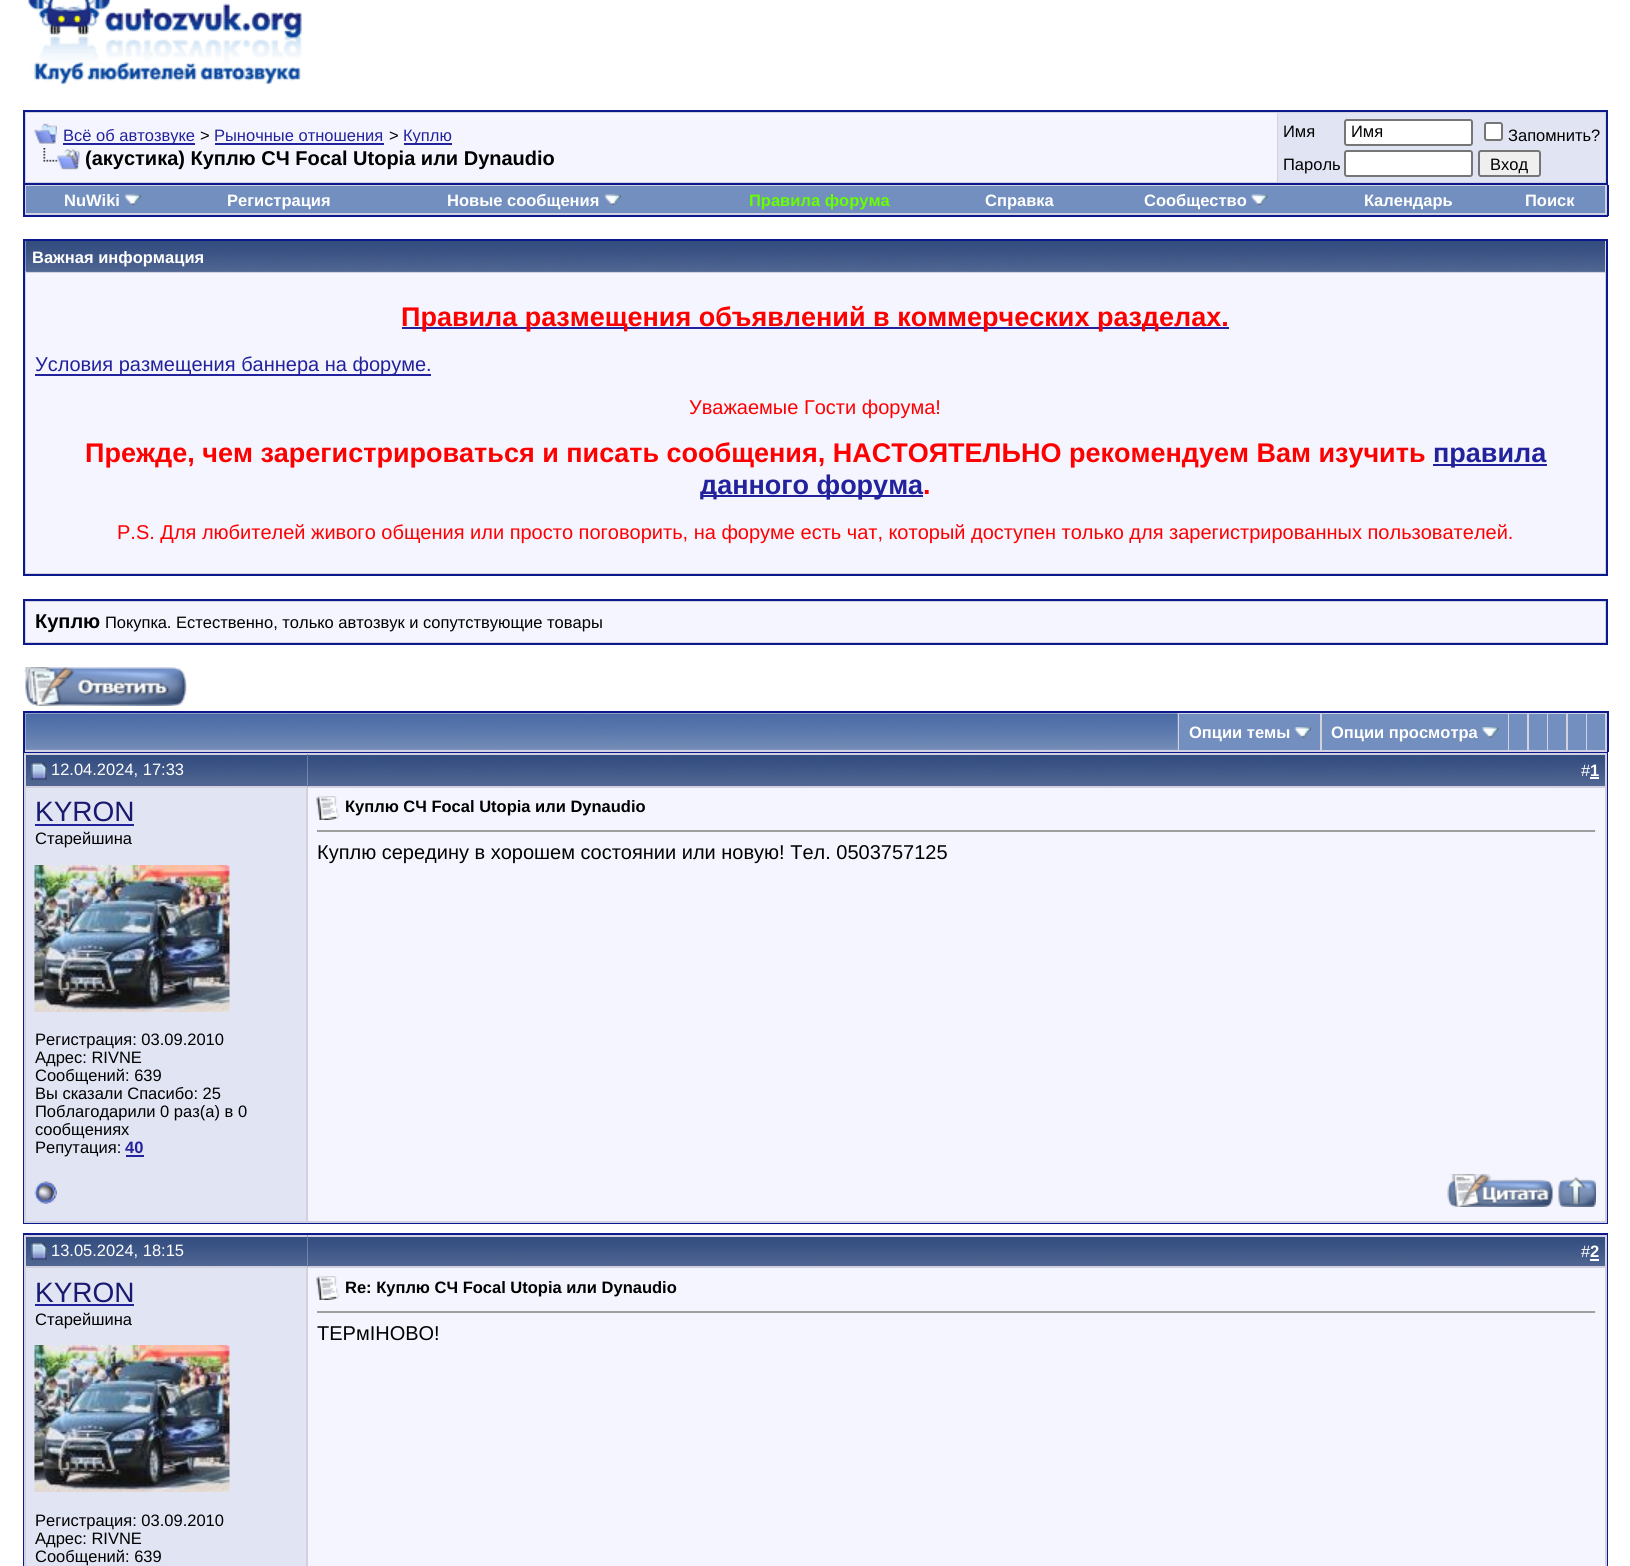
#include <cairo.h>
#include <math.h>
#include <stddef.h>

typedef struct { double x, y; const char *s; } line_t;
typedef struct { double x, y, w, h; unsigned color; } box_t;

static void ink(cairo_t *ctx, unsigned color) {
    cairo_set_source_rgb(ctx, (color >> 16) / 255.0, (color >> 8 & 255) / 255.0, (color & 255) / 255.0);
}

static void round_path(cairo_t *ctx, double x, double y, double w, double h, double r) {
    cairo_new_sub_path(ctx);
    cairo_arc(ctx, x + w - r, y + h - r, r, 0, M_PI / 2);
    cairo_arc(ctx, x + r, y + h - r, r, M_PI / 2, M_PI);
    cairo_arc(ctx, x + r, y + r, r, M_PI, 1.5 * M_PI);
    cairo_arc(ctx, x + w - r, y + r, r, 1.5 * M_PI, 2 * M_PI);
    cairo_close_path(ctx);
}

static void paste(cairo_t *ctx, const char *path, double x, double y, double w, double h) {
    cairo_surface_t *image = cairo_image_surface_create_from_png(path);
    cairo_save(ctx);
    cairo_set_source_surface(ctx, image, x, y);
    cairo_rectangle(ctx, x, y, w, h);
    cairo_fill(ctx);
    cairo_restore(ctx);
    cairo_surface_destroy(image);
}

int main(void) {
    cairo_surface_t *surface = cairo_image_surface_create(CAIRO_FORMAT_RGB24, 1630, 1566);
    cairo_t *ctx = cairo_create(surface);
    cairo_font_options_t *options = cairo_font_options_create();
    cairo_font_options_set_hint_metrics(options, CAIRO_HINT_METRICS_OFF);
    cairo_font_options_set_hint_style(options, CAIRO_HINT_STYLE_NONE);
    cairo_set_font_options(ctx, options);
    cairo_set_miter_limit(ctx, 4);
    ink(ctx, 0xFFFFFF);
    cairo_paint(ctx);
    paste(ctx, "media/1.png", 28, 0, 274, 85);
    ink(ctx, 0xD1D1E1);
    cairo_rectangle(ctx, 24, 111, 1583, 73);
    cairo_fill_preserve(ctx);
    ink(ctx, 0x0B198C);
    cairo_stroke(ctx);
    ink(ctx, 0xF5F5FF);
    cairo_rectangle(ctx, 26, 113, 1251, 69);
    cairo_fill(ctx);
    paste(ctx, "media/2.png", 34, 123, 23, 21);
    ink(ctx, 0x22229C);
    cairo_rectangle(ctx, 63, 143, 132, 2);
    cairo_fill(ctx);
    cairo_select_font_face(ctx, "Liberation Sans", CAIRO_FONT_SLANT_NORMAL, CAIRO_FONT_WEIGHT_NORMAL);
    cairo_set_font_size(ctx, 16.5);
    cairo_move_to(ctx, 63, 141);
    cairo_show_text(ctx, "Всё об автозвуке");
    ink(ctx, 0x000000);
    cairo_move_to(ctx, 200, 141);
    cairo_show_text(ctx, ">");
    ink(ctx, 0x22229C);
    cairo_move_to(ctx, 214, 141);
    cairo_show_text(ctx, "Рыночные отношения");
    cairo_rectangle(ctx, 215, 143, 169, 2);
    cairo_fill(ctx);
    ink(ctx, 0x000000);
    cairo_move_to(ctx, 389, 141);
    cairo_show_text(ctx, ">");
    ink(ctx, 0x22229C);
    cairo_rectangle(ctx, 404, 143, 48, 2);
    cairo_fill(ctx);
    cairo_move_to(ctx, 403, 141);
    cairo_show_text(ctx, "Куплю");
    paste(ctx, "media/3.png", 43, 148, 37, 22);
    cairo_select_font_face(ctx, "Liberation Sans", CAIRO_FONT_SLANT_NORMAL, CAIRO_FONT_WEIGHT_BOLD);
    cairo_set_font_size(ctx, 20);
    ink(ctx, 0x000000);
    cairo_move_to(ctx, 85, 165);
    cairo_show_text(ctx, "(акустика) Куплю СЧ Focal Utopia или Dynaudio");
    ink(ctx, 0xE1E4F2);
    cairo_rectangle(ctx, 1278, 113, 327, 69);
    cairo_fill(ctx);
    cairo_select_font_face(ctx, "Liberation Sans", CAIRO_FONT_SLANT_NORMAL, CAIRO_FONT_WEIGHT_NORMAL);
    cairo_set_font_size(ctx, 16.5);
    ink(ctx, 0x000000);
    cairo_move_to(ctx, 1283, 137);
    cairo_show_text(ctx, "Имя");
    ink(ctx, 0xFFFFFF);
    round_path(ctx, 1345, 120, 127, 25, 2);
    cairo_fill_preserve(ctx);
    ink(ctx, 0x767676);
    cairo_stroke(ctx);
    ink(ctx, 0x000000);
    cairo_move_to(ctx, 1351, 137);
    cairo_show_text(ctx, "Имя");
    ink(ctx, 0xFFFFFF);
    round_path(ctx, 1485, 123, 17, 17, 2);
    cairo_fill_preserve(ctx);
    ink(ctx, 0x767676);
    cairo_stroke(ctx);
    ink(ctx, 0x000000);
    cairo_move_to(ctx, 1508, 141);
    cairo_show_text(ctx, "Запомнить?");
    cairo_move_to(ctx, 1283, 170);
    cairo_show_text(ctx, "Пароль");
    ink(ctx, 0xFFFFFF);
    round_path(ctx, 1345, 151, 127, 25, 2);
    cairo_fill_preserve(ctx);
    ink(ctx, 0x767676);
    cairo_stroke(ctx);
    ink(ctx, 0xEFEFEF);
    round_path(ctx, 1479, 151, 61, 25, 2);
    cairo_fill_preserve(ctx);
    ink(ctx, 0x767676);
    cairo_stroke(ctx);
    ink(ctx, 0x000000);
    cairo_move_to(ctx, 1490, 170);
    cairo_show_text(ctx, "Вход");
    {
        static const box_t items[] = {
            {25, 185, 1582, 30, 0xD1D1E1},
            {1607, 185, 2, 31, 0x0B198C},
            {23, 215, 1585, 2, 0x0B198C},
            {23, 185, 2, 31, 0x0B198C},
            {26, 186, 1579, 27, 0x738FBF},
        };
        for (size_t i = 0; i < sizeof items / sizeof *items; i++) {
            ink(ctx, items[i].color);
            cairo_rectangle(ctx, items[i].x, items[i].y, items[i].w, items[i].h);
            cairo_fill(ctx);
        }
    }
    cairo_select_font_face(ctx, "Liberation Sans", CAIRO_FONT_SLANT_NORMAL, CAIRO_FONT_WEIGHT_BOLD);
    ink(ctx, 0xFFFFFF);
    cairo_move_to(ctx, 64, 206);
    cairo_show_text(ctx, "NuWiki");
    paste(ctx, "media/4.png", 124, 194, 17, 11);
    cairo_move_to(ctx, 227, 206);
    cairo_show_text(ctx, "Регистрация");
    cairo_move_to(ctx, 447, 206);
    cairo_show_text(ctx, "Новые сообщения");
    paste(ctx, "media/5.png", 604, 194, 17, 11);
    ink(ctx, 0x66FF00);
    cairo_move_to(ctx, 749, 206);
    cairo_show_text(ctx, "Правила форума");
    ink(ctx, 0xFFFFFF);
    cairo_move_to(ctx, 985, 206);
    cairo_show_text(ctx, "Справка");
    cairo_move_to(ctx, 1144, 206);
    cairo_show_text(ctx, "Сообщество");
    paste(ctx, "media/6.png", 1251, 194, 17, 11);
    cairo_move_to(ctx, 1364, 206);
    cairo_show_text(ctx, "Календарь");
    cairo_move_to(ctx, 1525, 206);
    cairo_show_text(ctx, "Поиск");
    ink(ctx, 0xD1D1E1);
    cairo_rectangle(ctx, 24, 240, 1583, 335);
    cairo_fill_preserve(ctx);
    ink(ctx, 0x0B198C);
    cairo_stroke(ctx);
    ink(ctx, 0x5C7099);
    cairo_rectangle(ctx, 26, 271, 1579, 1);
    cairo_fill(ctx);
    paste(ctx, "media/7.png", 25, 241, 1580, 30);
    ink(ctx, 0xFFFFFF);
    cairo_move_to(ctx, 32, 263);
    cairo_show_text(ctx, "Важная информация");
    ink(ctx, 0xF5F5FF);
    cairo_rectangle(ctx, 26, 273, 1579, 300);
    cairo_fill(ctx);
    ink(ctx, 0x22229C);
    cairo_rectangle(ctx, 402, 327, 827, 2);
    cairo_fill(ctx);
    cairo_set_font_size(ctx, 27);
    ink(ctx, 0xFF0000);
    cairo_move_to(ctx, 401, 326);
    cairo_show_text(ctx, "Правила размещения объявлений в коммерческих разделах.");
    ink(ctx, 0x22229C);
    cairo_rectangle(ctx, 35, 374, 396, 2);
    cairo_fill(ctx);
    cairo_select_font_face(ctx, "Liberation Sans", CAIRO_FONT_SLANT_NORMAL, CAIRO_FONT_WEIGHT_NORMAL);
    cairo_set_font_size(ctx, 20);
    cairo_move_to(ctx, 35, 371);
    cairo_show_text(ctx, "Условия размещения баннера на форуме.");
    ink(ctx, 0xFF0000);
    cairo_move_to(ctx, 689, 414);
    cairo_show_text(ctx, "Уважаемые Гости форума!");
    cairo_select_font_face(ctx, "Liberation Sans", CAIRO_FONT_SLANT_NORMAL, CAIRO_FONT_WEIGHT_BOLD);
    cairo_set_font_size(ctx, 27);
    cairo_move_to(ctx, 85, 462);
    cairo_show_text(ctx, "Прежде, чем зарегистрироваться и писать сообщения, НАСТОЯТЕЛЬНО рекомендуем Вам изучить");
    ink(ctx, 0x22229C);
    cairo_rectangle(ctx, 1433, 464, 114, 2);
    cairo_fill(ctx);
    cairo_move_to(ctx, 1433, 462);
    cairo_show_text(ctx, "правила");
    cairo_rectangle(ctx, 701, 495, 222, 2);
    cairo_fill(ctx);
    cairo_move_to(ctx, 700, 494);
    cairo_show_text(ctx, "данного форума");
    ink(ctx, 0xFF0000);
    cairo_move_to(ctx, 923, 494);
    cairo_show_text(ctx, ".");
    cairo_select_font_face(ctx, "Liberation Sans", CAIRO_FONT_SLANT_NORMAL, CAIRO_FONT_WEIGHT_NORMAL);
    cairo_set_font_size(ctx, 20);
    cairo_move_to(ctx, 117, 539);
    cairo_show_text(ctx, "P.S. Для любителей живого общения или просто поговорить, на форуме есть чат, который доступен только для зарегистрированных пользователей.");
    ink(ctx, 0xD1D1E1);
    cairo_rectangle(ctx, 24, 600, 1583, 44);
    cairo_fill_preserve(ctx);
    ink(ctx, 0x0B198C);
    cairo_stroke(ctx);
    ink(ctx, 0xF5F5FF);
    cairo_rectangle(ctx, 26, 602, 1579, 40);
    cairo_fill(ctx);
    cairo_select_font_face(ctx, "Liberation Sans", CAIRO_FONT_SLANT_NORMAL, CAIRO_FONT_WEIGHT_BOLD);
    ink(ctx, 0x000000);
    cairo_move_to(ctx, 35, 628);
    cairo_show_text(ctx, "Куплю");
    cairo_select_font_face(ctx, "Liberation Sans", CAIRO_FONT_SLANT_NORMAL, CAIRO_FONT_WEIGHT_NORMAL);
    cairo_set_font_size(ctx, 16.5);
    cairo_move_to(ctx, 105, 628);
    cairo_show_text(ctx, "Покупка. Естественно, только автозвук и сопутствующие товары");
    paste(ctx, "media/8.png", 24, 667, 163, 39);
    {
        static const box_t items[] = {
            {25, 713, 1582, 39, 0xD1D1E1},
            {23, 711, 1585, 2, 0x0B198C},
            {1607, 711, 2, 41, 0x0B198C},
            {23, 711, 2, 41, 0x0B198C},
            {26, 714, 1152, 36, 0x869BBF},
        };
        for (size_t i = 0; i < sizeof items / sizeof *items; i++) {
            ink(ctx, items[i].color);
            cairo_rectangle(ctx, items[i].x, items[i].y, items[i].w, items[i].h);
            cairo_fill(ctx);
        }
    }
    paste(ctx, "media/9.png", 25, 713, 1153, 37);
    ink(ctx, 0x738FBF);
    cairo_rectangle(ctx, 1179, 714, 141, 36);
    cairo_fill(ctx);
    cairo_select_font_face(ctx, "Liberation Sans", CAIRO_FONT_SLANT_NORMAL, CAIRO_FONT_WEIGHT_BOLD);
    ink(ctx, 0xFFFFFF);
    cairo_move_to(ctx, 1189, 738);
    cairo_show_text(ctx, "Опции темы");
    paste(ctx, "media/10.png", 1294, 727, 17, 11);
    ink(ctx, 0x738FBF);
    cairo_rectangle(ctx, 1322, 714, 186, 36);
    cairo_fill(ctx);
    ink(ctx, 0xFFFFFF);
    cairo_move_to(ctx, 1331, 738);
    cairo_show_text(ctx, "Опции просмотра");
    paste(ctx, "media/11.png", 1482, 727, 17, 11);
    {
        static const box_t items[] = {
            {1509, 714, 18, 36, 0x738FBF},
            {1529, 714, 18, 36, 0x738FBF},
            {1548, 714, 18, 36, 0x738FBF},
            {1568, 714, 18, 36, 0x738FBF},
            {1587, 714, 18, 36, 0x738FBF},
        };
        for (size_t i = 0; i < sizeof items / sizeof *items; i++) {
            ink(ctx, items[i].color);
            cairo_rectangle(ctx, items[i].x, items[i].y, items[i].w, items[i].h);
            cairo_fill(ctx);
        }
    }
    cairo_rectangle(ctx, 24, 753, 1583, 470);
    ink(ctx, 0x0B198C);
    cairo_stroke(ctx);
    paste(ctx, "media/12.png", 26, 755, 282, 31);
    {
        static const box_t items[] = {
            {24, 753, 284, 2, 0xD1D1E1},
            {24, 786, 284, 2, 0xD1D1E1},
            {24, 753, 2, 413, 0xD1D1E1},
        };
        for (size_t i = 0; i < sizeof items / sizeof *items; i++) {
            ink(ctx, items[i].color);
            cairo_rectangle(ctx, items[i].x, items[i].y, items[i].w, items[i].h);
            cairo_fill(ctx);
        }
    }
    paste(ctx, "media/13.png", 31, 763, 16, 17);
    cairo_select_font_face(ctx, "Liberation Sans", CAIRO_FONT_SLANT_NORMAL, CAIRO_FONT_WEIGHT_NORMAL);
    ink(ctx, 0xFFFFFF);
    cairo_move_to(ctx, 51, 775);
    cairo_show_text(ctx, "12.04.2024, 17:33");
    paste(ctx, "media/14.png", 307, 754, 1298, 33);
    {
        static const box_t items[] = {
            {308, 753, 1299, 2, 0xD1D1E1},
            {1605, 753, 2, 470, 0xD1D1E1},
            {308, 786, 1299, 2, 0xD1D1E1},
        };
        for (size_t i = 0; i < sizeof items / sizeof *items; i++) {
            ink(ctx, items[i].color);
            cairo_rectangle(ctx, items[i].x, items[i].y, items[i].w, items[i].h);
            cairo_fill(ctx);
        }
    }
    ink(ctx, 0xFFFFFF);
    cairo_move_to(ctx, 1581, 776);
    cairo_show_text(ctx, "#");
    cairo_select_font_face(ctx, "Liberation Sans", CAIRO_FONT_SLANT_NORMAL, CAIRO_FONT_WEIGHT_BOLD);
    cairo_move_to(ctx, 1590, 776);
    cairo_show_text(ctx, "1");
    {
        static const box_t items[] = {
            {1590, 777, 9, 2, 0xFFFFFF},
            {26, 788, 280, 433, 0xE1E4F2},
            {306, 788, 2, 435, 0xD1D1E1},
        };
        for (size_t i = 0; i < sizeof items / sizeof *items; i++) {
            ink(ctx, items[i].color);
            cairo_rectangle(ctx, items[i].x, items[i].y, items[i].w, items[i].h);
            cairo_fill(ctx);
        }
    }
    cairo_select_font_face(ctx, "Liberation Sans", CAIRO_FONT_SLANT_NORMAL, CAIRO_FONT_WEIGHT_NORMAL);
    cairo_set_font_size(ctx, 28);
    ink(ctx, 0x191970);
    cairo_move_to(ctx, 35, 821);
    cairo_show_text(ctx, "KYRON");
    ink(ctx, 0x22229C);
    cairo_rectangle(ctx, 35, 824, 99, 2);
    cairo_fill(ctx);
    cairo_set_font_size(ctx, 16.5);
    ink(ctx, 0x000000);
    cairo_move_to(ctx, 35, 844);
    cairo_show_text(ctx, "Старейшина");
    paste(ctx, "media/15.png", 34, 865, 196, 147);
    {
        static const line_t items[] = {
            {35, 1045, "Регистрация: 03.09.2010"},
            {35, 1063, "Адрес: RIVNE"},
            {35, 1081, "Сообщений: 639"},
            {35, 1099, "Вы сказали Спасибо: 25"},
            {35, 1117, "Поблагодарили 0 раз(а) в 0"},
            {35, 1135, "сообщениях"},
            {35, 1153, "Репутация:"},
        };
        for (size_t i = 0; i < sizeof items / sizeof *items; i++) {
            cairo_move_to(ctx, items[i].x, items[i].y);
            cairo_show_text(ctx, items[i].s);
        }
    }
    cairo_select_font_face(ctx, "Liberation Sans", CAIRO_FONT_SLANT_NORMAL, CAIRO_FONT_WEIGHT_BOLD);
    ink(ctx, 0x22229C);
    cairo_move_to(ctx, 125, 1153);
    cairo_show_text(ctx, "40");
    cairo_rectangle(ctx, 126, 1155, 18, 2);
    cairo_fill(ctx);
    ink(ctx, 0xF5F5FF);
    cairo_rectangle(ctx, 308, 788, 1297, 433);
    cairo_fill(ctx);
    paste(ctx, "media/16.png", 316, 796, 24, 24);
    ink(ctx, 0x000000);
    cairo_move_to(ctx, 345, 812);
    cairo_show_text(ctx, "Куплю СЧ Focal Utopia или Dynaudio");
    ink(ctx, 0x9F9F9F);
    cairo_rectangle(ctx, 317, 830, 1279, 2);
    cairo_fill(ctx);
    ink(ctx, 0xEEEEEE);
    cairo_rectangle(ctx, 1595, 830, 2, 2);
    cairo_fill(ctx);
    cairo_select_font_face(ctx, "Liberation Sans", CAIRO_FONT_SLANT_NORMAL, CAIRO_FONT_WEIGHT_NORMAL);
    cairo_set_font_size(ctx, 20);
    ink(ctx, 0x000000);
    cairo_move_to(ctx, 317, 859);
    cairo_show_text(ctx, "Куплю середину в хорошем состоянии или новую! Тел. 0503757125");
    ink(ctx, 0xD1D1E1);
    cairo_rectangle(ctx, 24, 1221, 1583, 2);
    cairo_fill(ctx);
    cairo_rectangle(ctx, 24, 1166, 2, 57);
    cairo_fill(ctx);
    paste(ctx, "media/17.png", 34, 1181, 23, 23);
    paste(ctx, "media/18.png", 1447, 1174, 106, 33);
    paste(ctx, "media/19.png", 1558, 1176, 38, 31);
    cairo_rectangle(ctx, 24, 1234, 1583, 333);
    ink(ctx, 0x0B198C);
    cairo_stroke(ctx);
    paste(ctx, "media/20.png", 26, 1237, 282, 29);
    {
        static const box_t items[] = {
            {24, 1235, 284, 2, 0xD1D1E1},
            {24, 1266, 284, 2, 0xD1D1E1},
            {24, 1235, 2, 331, 0xD1D1E1},
        };
        for (size_t i = 0; i < sizeof items / sizeof *items; i++) {
            ink(ctx, items[i].color);
            cairo_rectangle(ctx, items[i].x, items[i].y, items[i].w, items[i].h);
            cairo_fill(ctx);
        }
    }
    paste(ctx, "media/21.png", 31, 1243, 16, 17);
    cairo_set_font_size(ctx, 16.5);
    ink(ctx, 0xFFFFFF);
    cairo_move_to(ctx, 51, 1256);
    cairo_show_text(ctx, "13.05.2024, 18:15");
    paste(ctx, "media/22.png", 307, 1235, 1298, 32);
    {
        static const box_t items[] = {
            {308, 1235, 1299, 2, 0xD1D1E1},
            {1605, 1235, 2, 331, 0xD1D1E1},
            {308, 1266, 1299, 2, 0xD1D1E1},
        };
        for (size_t i = 0; i < sizeof items / sizeof *items; i++) {
            ink(ctx, items[i].color);
            cairo_rectangle(ctx, items[i].x, items[i].y, items[i].w, items[i].h);
            cairo_fill(ctx);
        }
    }
    ink(ctx, 0xFFFFFF);
    cairo_move_to(ctx, 1581, 1257);
    cairo_show_text(ctx, "#");
    cairo_select_font_face(ctx, "Liberation Sans", CAIRO_FONT_SLANT_NORMAL, CAIRO_FONT_WEIGHT_BOLD);
    cairo_move_to(ctx, 1590, 1257);
    cairo_show_text(ctx, "2");
    {
        static const box_t items[] = {
            {1590, 1259, 9, 2, 0xFFFFFF},
            {26, 1268, 280, 298, 0xE1E4F2},
            {306, 1268, 2, 298, 0xD1D1E1},
        };
        for (size_t i = 0; i < sizeof items / sizeof *items; i++) {
            ink(ctx, items[i].color);
            cairo_rectangle(ctx, items[i].x, items[i].y, items[i].w, items[i].h);
            cairo_fill(ctx);
        }
    }
    cairo_select_font_face(ctx, "Liberation Sans", CAIRO_FONT_SLANT_NORMAL, CAIRO_FONT_WEIGHT_NORMAL);
    cairo_set_font_size(ctx, 28);
    ink(ctx, 0x191970);
    cairo_move_to(ctx, 35, 1302);
    cairo_show_text(ctx, "KYRON");
    ink(ctx, 0x22229C);
    cairo_rectangle(ctx, 35, 1304, 99, 2);
    cairo_fill(ctx);
    cairo_set_font_size(ctx, 16.5);
    ink(ctx, 0x000000);
    cairo_move_to(ctx, 35, 1325);
    cairo_show_text(ctx, "Старейшина");
    paste(ctx, "media/15.png", 34, 1345, 196, 147);
    {
        static const line_t items[] = {
            {35, 1526, "Регистрация: 03.09.2010"},
            {35, 1544, "Адрес: RIVNE"},
            {35, 1562, "Сообщений: 639"},
        };
        for (size_t i = 0; i < sizeof items / sizeof *items; i++) {
            cairo_move_to(ctx, items[i].x, items[i].y);
            cairo_show_text(ctx, items[i].s);
        }
    }
    ink(ctx, 0xF5F5FF);
    cairo_rectangle(ctx, 308, 1268, 1297, 298);
    cairo_fill(ctx);
    paste(ctx, "media/16.png", 316, 1276, 24, 24);
    cairo_select_font_face(ctx, "Liberation Sans", CAIRO_FONT_SLANT_NORMAL, CAIRO_FONT_WEIGHT_BOLD);
    ink(ctx, 0x000000);
    cairo_move_to(ctx, 345, 1293);
    cairo_show_text(ctx, "Re: Куплю СЧ Focal Utopia или Dynaudio");
    ink(ctx, 0x9F9F9F);
    cairo_rectangle(ctx, 317, 1311, 1279, 2);
    cairo_fill(ctx);
    ink(ctx, 0xEEEEEE);
    cairo_rectangle(ctx, 1595, 1311, 2, 2);
    cairo_fill(ctx);
    cairo_select_font_face(ctx, "Liberation Sans", CAIRO_FONT_SLANT_NORMAL, CAIRO_FONT_WEIGHT_NORMAL);
    cairo_set_font_size(ctx, 20);
    ink(ctx, 0x000000);
    cairo_move_to(ctx, 317, 1340);
    cairo_show_text(ctx, "ТЕРмІНОВО!");
    cairo_surface_write_to_png(surface, "image.png");
    cairo_font_options_destroy(options);
    cairo_destroy(ctx);
    cairo_surface_destroy(surface);
    return 0;
}
